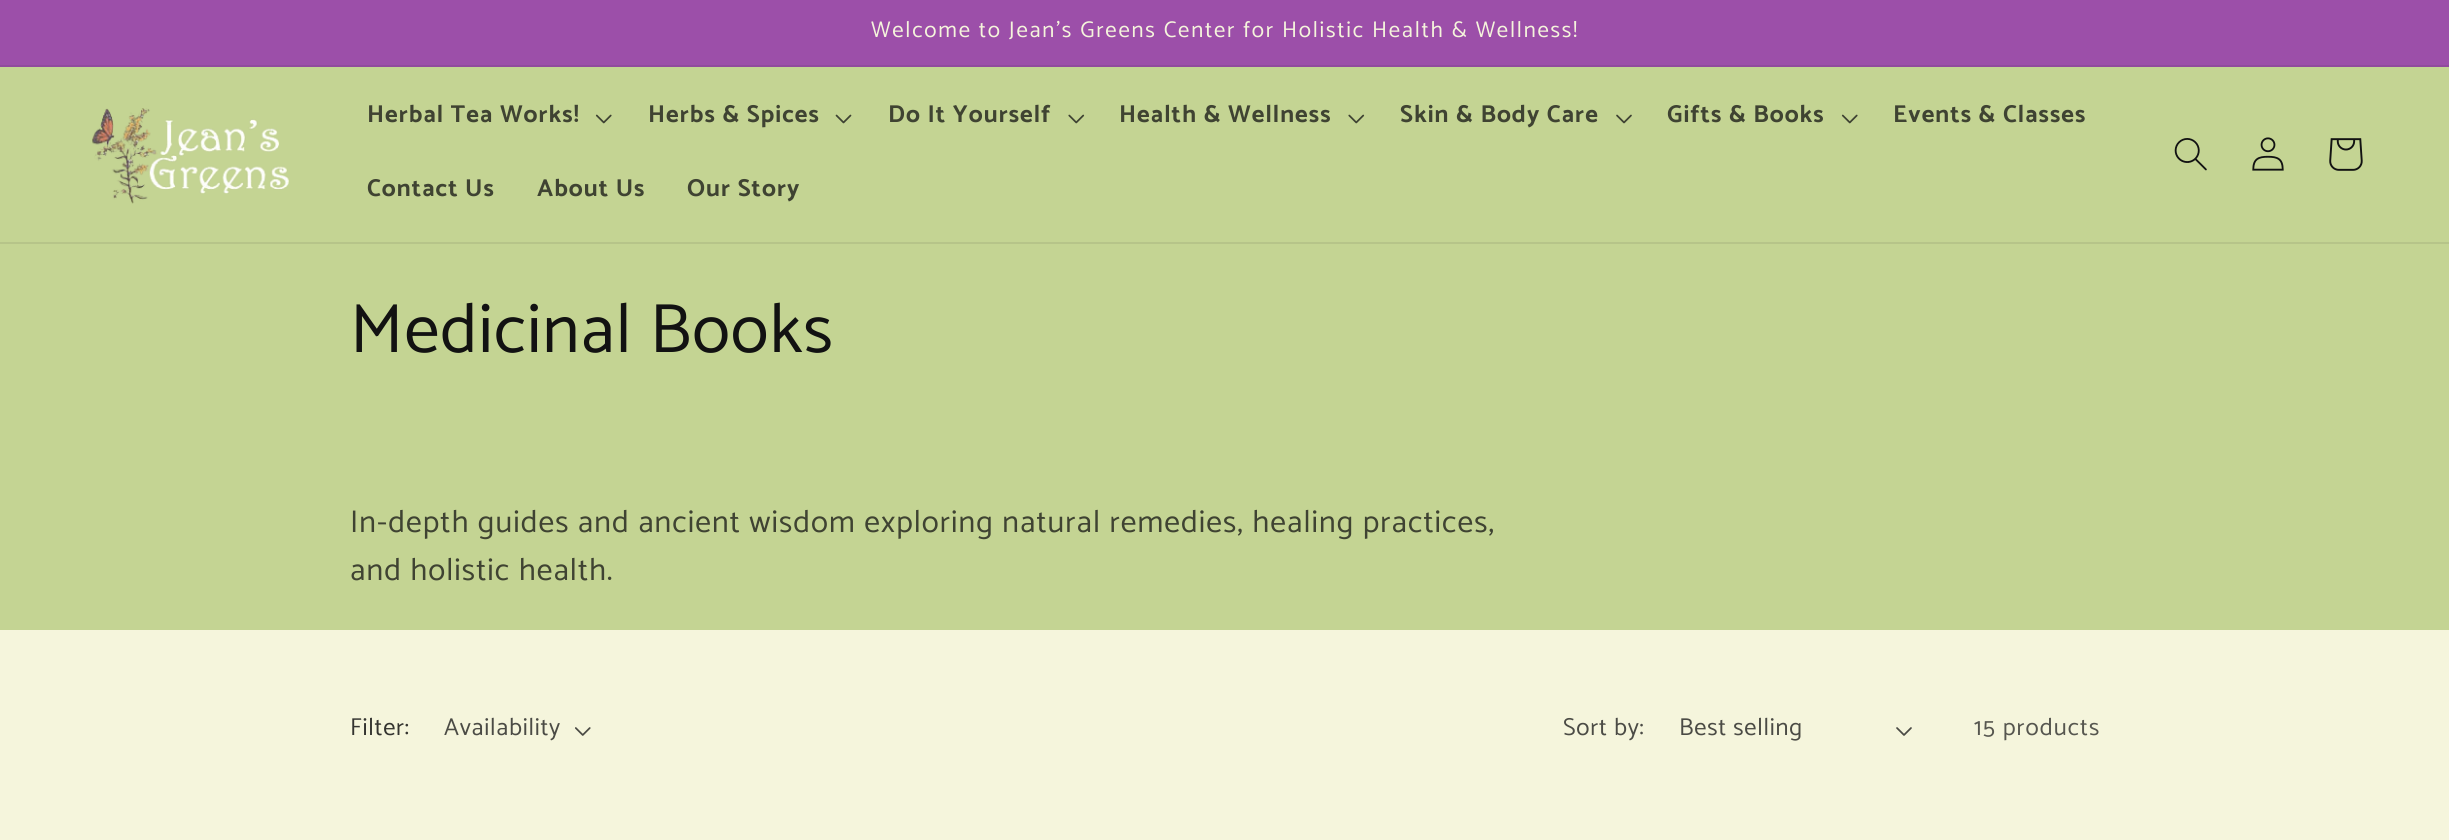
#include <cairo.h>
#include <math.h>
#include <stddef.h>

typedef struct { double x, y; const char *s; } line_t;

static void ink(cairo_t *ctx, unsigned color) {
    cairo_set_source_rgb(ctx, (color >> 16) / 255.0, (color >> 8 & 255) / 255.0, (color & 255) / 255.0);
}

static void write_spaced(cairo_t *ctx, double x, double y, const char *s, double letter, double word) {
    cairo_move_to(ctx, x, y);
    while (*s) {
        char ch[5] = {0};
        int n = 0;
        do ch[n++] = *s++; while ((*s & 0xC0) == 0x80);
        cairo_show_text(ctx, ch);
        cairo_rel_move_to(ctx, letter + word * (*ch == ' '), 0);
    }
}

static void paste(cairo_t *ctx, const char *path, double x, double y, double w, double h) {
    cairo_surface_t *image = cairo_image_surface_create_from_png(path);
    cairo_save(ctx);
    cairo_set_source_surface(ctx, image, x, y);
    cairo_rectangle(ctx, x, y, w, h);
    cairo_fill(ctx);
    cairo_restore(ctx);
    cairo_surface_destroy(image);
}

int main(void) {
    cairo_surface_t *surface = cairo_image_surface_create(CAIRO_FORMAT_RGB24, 2449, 840);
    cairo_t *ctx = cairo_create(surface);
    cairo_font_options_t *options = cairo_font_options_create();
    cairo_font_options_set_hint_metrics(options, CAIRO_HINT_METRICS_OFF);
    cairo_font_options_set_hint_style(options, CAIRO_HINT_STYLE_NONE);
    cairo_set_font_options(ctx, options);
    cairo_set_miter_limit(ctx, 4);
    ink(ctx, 0xF5F5DC);
    cairo_paint(ctx);
    ink(ctx, 0x9C4FA9);
    cairo_rectangle(ctx, 0, 0, 2449, 65);
    cairo_fill(ctx);
    ink(ctx, 0x914A9D);
    cairo_rectangle(ctx, 0, 65, 2449, 2);
    cairo_fill(ctx);
    cairo_select_font_face(ctx, "Catamaran", CAIRO_FONT_SLANT_NORMAL, CAIRO_FONT_WEIGHT_NORMAL);
    cairo_set_font_size(ctx, 22.75);
    ink(ctx, 0xF5F5DC);
    write_spaced(ctx, 871, 37, "Welcome to Jean's Greens Center for Holistic Health & Wellness!", 1.75, 0);
    ink(ctx, 0xC4D493);
    cairo_rectangle(ctx, 0, 67, 2449, 175);
    cairo_fill(ctx);
    ink(ctx, 0xB6C489);
    cairo_rectangle(ctx, 0, 242, 2449, 2);
    cairo_fill(ctx);
    paste(ctx, "media/1.png", 92, 108, 197, 96);
    cairo_select_font_face(ctx, "Catamaran", CAIRO_FONT_SLANT_NORMAL, CAIRO_FONT_WEIGHT_BOLD);
    cairo_set_font_size(ctx, 24.5);
    ink(ctx, 0x3F4332);
    write_spaced(ctx, 367, 122, "Herbal Tea Works!", 1.05, 0);
    paste(ctx, "media/2.png", 595, 114, 17, 10);
    write_spaced(ctx, 648, 122, "Herbs & Spices", 1.05, 0);
    paste(ctx, "media/3.png", 835, 114, 17, 10);
    write_spaced(ctx, 888, 122, "Do It Yourself", 1.05, 0);
    paste(ctx, "media/4.png", 1068, 114, 17, 10);
    write_spaced(ctx, 1119, 122, "Health & Wellness", 1.05, 0);
    paste(ctx, "media/4.png", 1348, 114, 17, 10);
    write_spaced(ctx, 1400, 122, "Skin & Body Care", 1.05, 0);
    paste(ctx, "media/5.png", 1616, 114, 16, 10);
    write_spaced(ctx, 1667, 122, "Gifts & Books", 1.05, 0);
    paste(ctx, "media/2.png", 1841, 114, 17, 10);
    {
        static const line_t items[] = {
            {1893, 122, "Events & Classes"},
            {367, 196, "Contact Us"},
            {537, 196, "About Us"},
            {687, 196, "Our Story"},
        };
        for (size_t i = 0; i < sizeof items / sizeof *items; i++) {
            write_spaced(ctx, items[i].x, items[i].y, items[i].s, 1.05, 0);
        }
    }
    paste(ctx, "media/6.png", 2174, 138, 33, 33);
    paste(ctx, "media/7.png", 2252, 137, 32, 34);
    paste(ctx, "media/8.png", 2329, 138, 34, 33);
    ink(ctx, 0xC4D493);
    cairo_rectangle(ctx, 0, 244, 2449, 386);
    cairo_fill(ctx);
    cairo_select_font_face(ctx, "Catamaran", CAIRO_FONT_SLANT_NORMAL, CAIRO_FONT_WEIGHT_NORMAL);
    cairo_set_font_size(ctx, 70);
    ink(ctx, 0x121212);
    write_spaced(ctx, 350, 352, "Medicinal Books", 1.05, 0);
    cairo_set_font_size(ctx, 31.5);
    ink(ctx, 0x3F4332);
    write_spaced(ctx, 350, 532, "In-depth guides and ancient wisdom exploring natural remedies, healing practices,", 1.05, 0);
    write_spaced(ctx, 350, 580, "and holistic health.", 1.05, 0);
    cairo_set_font_size(ctx, 24.5);
    ink(ctx, 0x343430);
    write_spaced(ctx, 350, 735, "Filter:", 0.75, 0);
    ink(ctx, 0x4B4B45);
    write_spaced(ctx, 444, 735, "Availability", 0.75, 0);
    paste(ctx, "media/9.png", 575, 727, 16, 9);
    write_spaced(ctx, 1563, 735, "Sort by:", 0.75, 0);
    write_spaced(ctx, 1679, 735, "Best selling", 0.75, 0);
    paste(ctx, "media/10.png", 1896, 727, 16, 9);
    ink(ctx, 0x56564F);
    write_spaced(ctx, 1974, 735, "15 products", 1.05, 0);
    cairo_surface_write_to_png(surface, "image.png");
    cairo_font_options_destroy(options);
    cairo_destroy(ctx);
    cairo_surface_destroy(surface);
    return 0;
}
